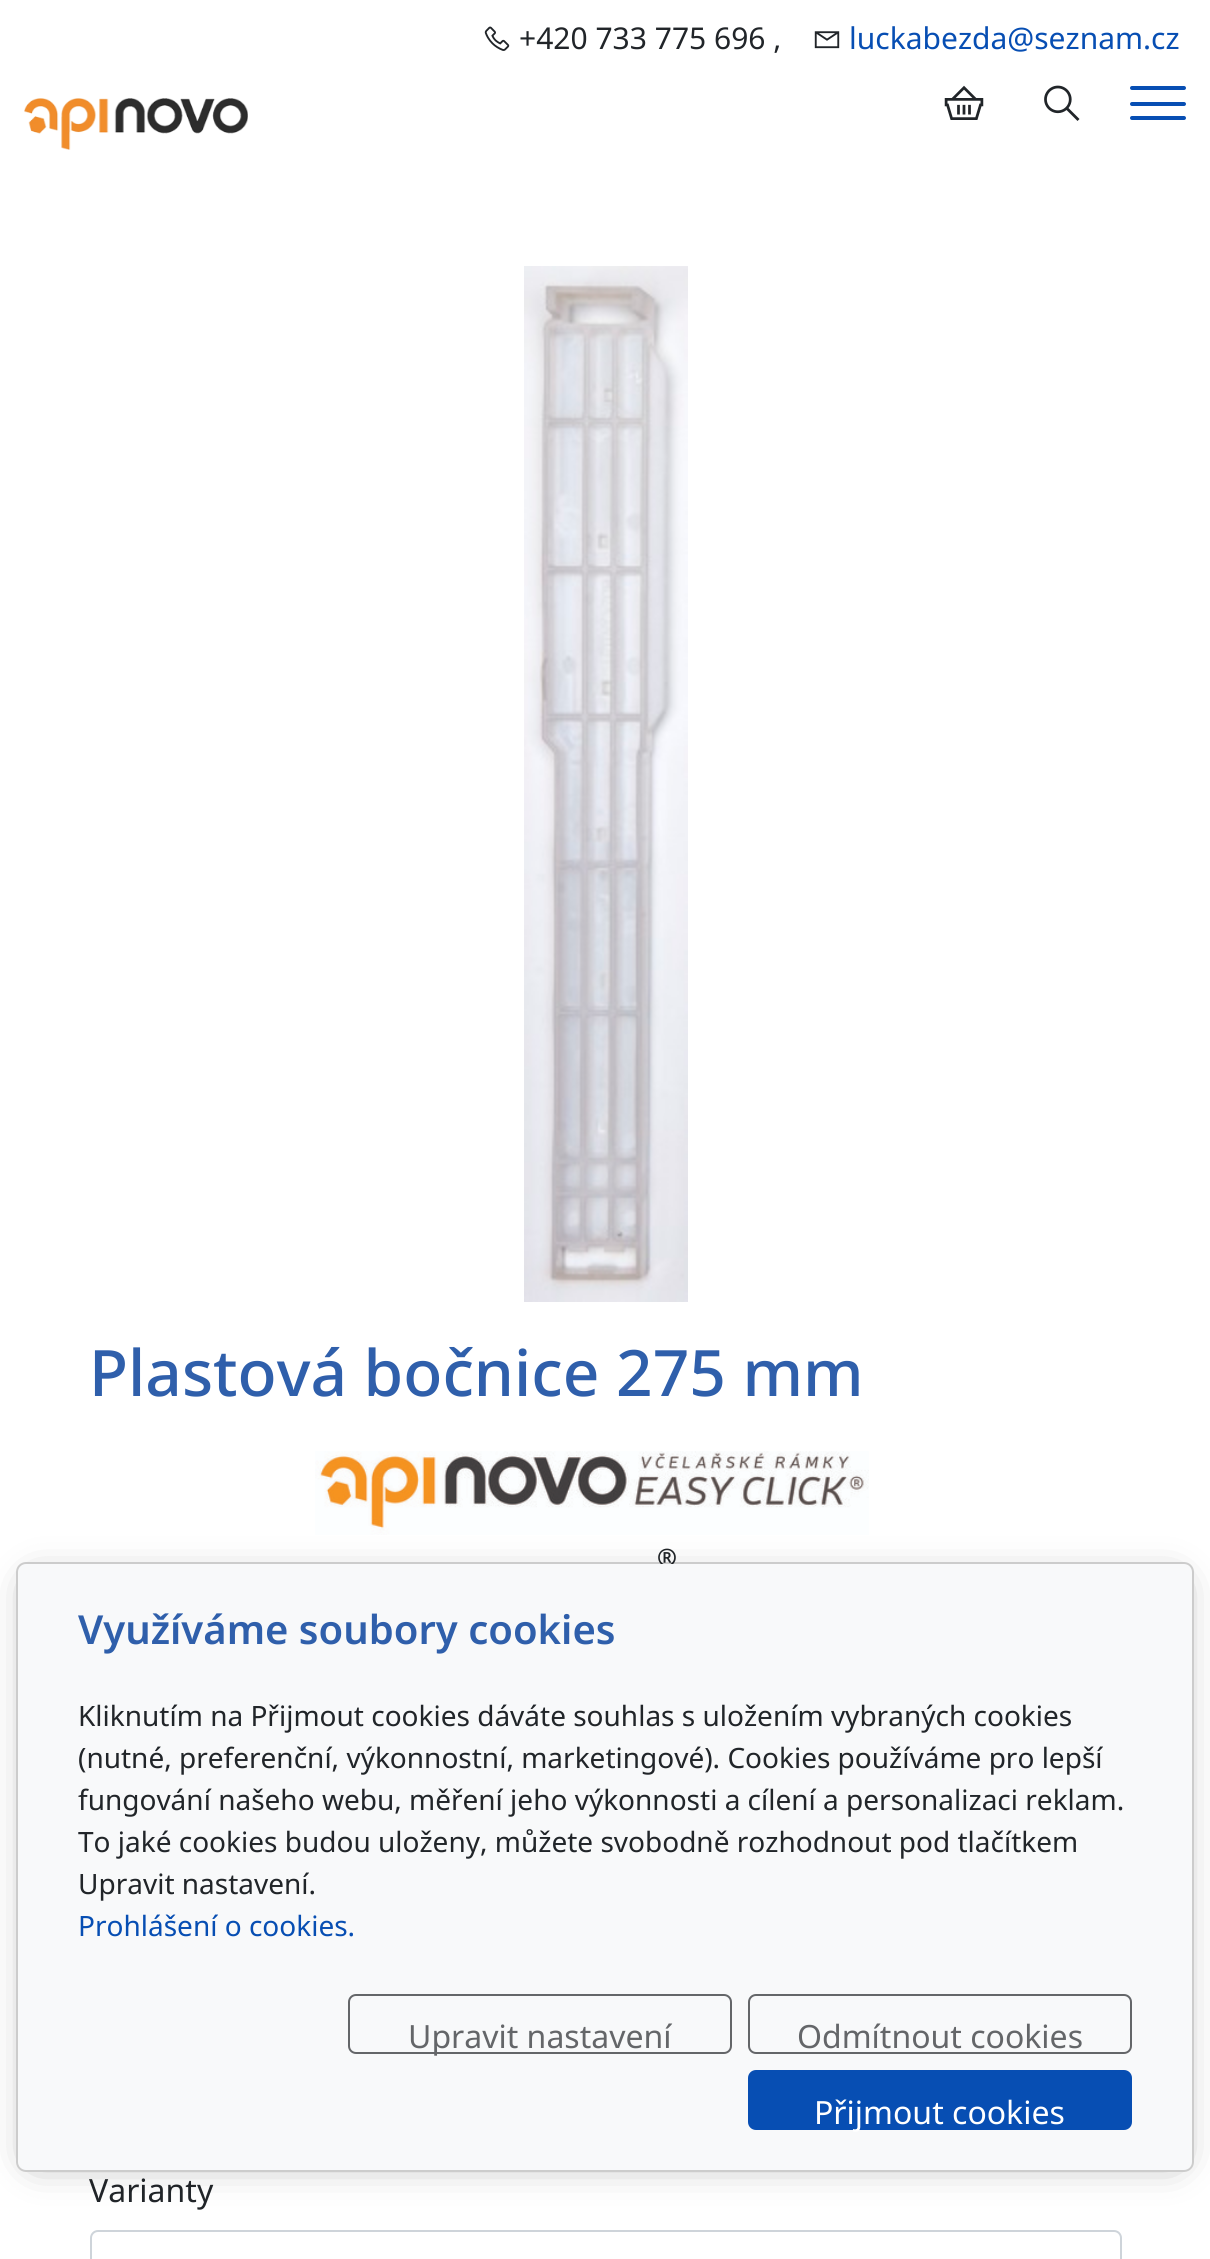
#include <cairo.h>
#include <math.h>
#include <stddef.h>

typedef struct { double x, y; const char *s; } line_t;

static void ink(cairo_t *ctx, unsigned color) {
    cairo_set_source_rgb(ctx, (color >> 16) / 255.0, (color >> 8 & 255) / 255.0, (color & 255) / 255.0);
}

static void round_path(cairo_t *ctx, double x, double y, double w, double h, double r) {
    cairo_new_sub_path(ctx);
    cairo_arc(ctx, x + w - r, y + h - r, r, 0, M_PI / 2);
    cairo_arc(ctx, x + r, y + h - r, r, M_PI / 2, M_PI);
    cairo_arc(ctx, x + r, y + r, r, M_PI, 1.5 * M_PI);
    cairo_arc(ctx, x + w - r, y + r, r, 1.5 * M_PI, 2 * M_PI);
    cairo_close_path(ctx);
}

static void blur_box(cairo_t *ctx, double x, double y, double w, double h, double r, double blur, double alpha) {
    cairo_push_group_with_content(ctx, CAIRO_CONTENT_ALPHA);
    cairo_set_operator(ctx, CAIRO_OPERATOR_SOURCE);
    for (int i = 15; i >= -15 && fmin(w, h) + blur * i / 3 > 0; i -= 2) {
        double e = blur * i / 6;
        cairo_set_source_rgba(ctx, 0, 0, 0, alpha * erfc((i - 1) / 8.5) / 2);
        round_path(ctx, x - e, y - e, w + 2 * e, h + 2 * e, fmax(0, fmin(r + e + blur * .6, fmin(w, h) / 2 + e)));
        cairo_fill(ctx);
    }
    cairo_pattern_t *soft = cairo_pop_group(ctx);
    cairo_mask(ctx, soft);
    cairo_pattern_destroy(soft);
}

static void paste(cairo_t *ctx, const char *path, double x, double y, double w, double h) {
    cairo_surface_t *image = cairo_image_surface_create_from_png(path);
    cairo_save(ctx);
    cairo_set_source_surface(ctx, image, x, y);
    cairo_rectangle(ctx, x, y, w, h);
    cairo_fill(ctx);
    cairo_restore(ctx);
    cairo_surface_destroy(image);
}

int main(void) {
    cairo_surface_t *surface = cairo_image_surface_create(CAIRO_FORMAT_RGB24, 1210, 2259);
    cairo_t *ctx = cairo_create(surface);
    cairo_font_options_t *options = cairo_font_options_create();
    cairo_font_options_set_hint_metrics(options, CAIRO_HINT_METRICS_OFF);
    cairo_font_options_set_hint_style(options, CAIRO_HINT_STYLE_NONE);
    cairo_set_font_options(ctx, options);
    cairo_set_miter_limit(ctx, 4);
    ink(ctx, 0xFFFFFF);
    cairo_paint(ctx);
    paste(ctx, "media/1.png", 484, 26, 26, 25);
    cairo_select_font_face(ctx, "Noto Sans", CAIRO_FONT_SLANT_NORMAL, CAIRO_FONT_WEIGHT_NORMAL);
    cairo_set_font_size(ctx, 30);
    ink(ctx, 0x212529);
    cairo_move_to(ctx, 519, 49);
    cairo_show_text(ctx, "+420 733 775 696 ,");
    paste(ctx, "media/2.png", 814, 31, 26, 18);
    ink(ctx, 0x074EB3);
    cairo_move_to(ctx, 849, 49);
    cairo_show_text(ctx, "luckabezda@seznam.cz");
    paste(ctx, "media/3.png", 24, 98, 224, 52);
    paste(ctx, "media/4.png", 944, 85, 40, 35);
    paste(ctx, "media/5.png", 1044, 85, 36, 36);
    round_path(ctx, 1130, 86, 56, 4, 2);
    cairo_fill(ctx);
    round_path(ctx, 1130, 102, 56, 4, 2);
    cairo_fill(ctx);
    round_path(ctx, 1130, 116, 56, 4, 2);
    cairo_fill(ctx);
    paste(ctx, "media/6.png", 524, 266, 164, 1036);
    cairo_select_font_face(ctx, "Noto Sans Medium", CAIRO_FONT_SLANT_NORMAL, CAIRO_FONT_WEIGHT_NORMAL);
    cairo_set_font_size(ctx, 64);
    ink(ctx, 0x2F5FAB);
    cairo_move_to(ctx, 89, 1396);
    cairo_show_text(ctx, "Plastová bočnice 275 mm");
    paste(ctx, "media/7.png", 315, 1451, 554, 84);
    cairo_select_font_face(ctx, "Noto Sans", CAIRO_FONT_SLANT_NORMAL, CAIRO_FONT_WEIGHT_BOLD);
    cairo_set_font_size(ctx, 24);
    ink(ctx, 0x212529);
    cairo_move_to(ctx, 657, 1566);
    cairo_show_text(ctx, "®");
    cairo_select_font_face(ctx, "Noto Sans", CAIRO_FONT_SLANT_NORMAL, CAIRO_FONT_WEIGHT_NORMAL);
    cairo_set_font_size(ctx, 32);
    cairo_move_to(ctx, 89, 2202);
    cairo_show_text(ctx, "Varianty");
    round_path(ctx, 91, 2231, 1030, 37, 7);
    ink(ctx, 0xCED4DA);
    cairo_stroke(ctx);
    cairo_save(ctx);
    cairo_set_fill_rule(ctx, CAIRO_FILL_RULE_EVEN_ODD);
    cairo_new_path(ctx);
    cairo_move_to(ctx, 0, 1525);
    cairo_line_to(ctx, 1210, 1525);
    cairo_line_to(ctx, 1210, 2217);
    cairo_line_to(ctx, 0, 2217);
    cairo_close_path(ctx);
    cairo_move_to(ctx, 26, 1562);
    cairo_line_to(ctx, 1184, 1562);
    cairo_curve_to(ctx, 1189.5, 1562, 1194, 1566.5, 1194, 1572);
    cairo_line_to(ctx, 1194, 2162);
    cairo_curve_to(ctx, 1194, 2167.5, 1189.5, 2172, 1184, 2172);
    cairo_line_to(ctx, 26, 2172);
    cairo_curve_to(ctx, 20.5, 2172, 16, 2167.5, 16, 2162);
    cairo_line_to(ctx, 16, 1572);
    cairo_curve_to(ctx, 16, 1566.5, 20.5, 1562, 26, 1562);
    cairo_close_path(ctx);
    cairo_clip(ctx);
    ink(ctx, 0x000000);
    blur_box(ctx, 36, 1586, 1138, 570, 0, 20, 0.5);
    cairo_restore(ctx);
    ink(ctx, 0xF8F9FA);
    round_path(ctx, 18, 1564, 1174, 606, 8);
    cairo_fill(ctx);
    round_path(ctx, 17, 1563, 1176, 608, 9);
    cairo_set_source_rgba(ctx, 0, 0, 0, 0.2);
    cairo_stroke(ctx);
    cairo_select_font_face(ctx, "Noto Sans SemiBold", CAIRO_FONT_SLANT_NORMAL, CAIRO_FONT_WEIGHT_NORMAL);
    cairo_set_font_size(ctx, 40);
    ink(ctx, 0x2F5FAB);
    cairo_move_to(ctx, 78, 1644);
    cairo_show_text(ctx, "Využíváme soubory cookies");
    cairo_select_font_face(ctx, "Noto Sans", CAIRO_FONT_SLANT_NORMAL, CAIRO_FONT_WEIGHT_NORMAL);
    cairo_set_font_size(ctx, 28);
    ink(ctx, 0x212529);
    {
        static const line_t items[] = {
            {78, 1726, "Kliknutím na Přijmout cookies dáváte souhlas s uložením vybraných cookies"},
            {78, 1768, "(nutné, preferenční, výkonnostní, marketingové). Cookies používáme pro lepší"},
            {78, 1810, "fungování našeho webu, měření jeho výkonnosti a cílení a personalizaci reklam."},
            {78, 1852, "To jaké cookies budou uloženy, můžete svobodně rozhodnout pod tlačítkem"},
            {78, 1894, "Upravit nastavení."},
        };
        for (size_t i = 0; i < sizeof items / sizeof *items; i++) {
            cairo_move_to(ctx, items[i].x, items[i].y);
            cairo_show_text(ctx, items[i].s);
        }
    }
    ink(ctx, 0x074EB3);
    cairo_move_to(ctx, 78, 1936);
    cairo_show_text(ctx, "Prohlášení o cookies.");
    round_path(ctx, 349, 1995, 382, 58, 7);
    ink(ctx, 0x646669);
    cairo_stroke(ctx);
    cairo_set_font_size(ctx, 32);
    cairo_move_to(ctx, 408, 2048);
    cairo_show_text(ctx, "Upravit nastavení");
    round_path(ctx, 749, 1995, 382, 58, 7);
    cairo_stroke(ctx);
    cairo_move_to(ctx, 797, 2048);
    cairo_show_text(ctx, "Odmítnout cookies");
    ink(ctx, 0x074EB3);
    round_path(ctx, 749, 2071, 382, 58, 7);
    cairo_fill_preserve(ctx);
    cairo_stroke(ctx);
    ink(ctx, 0xFFFFFF);
    cairo_move_to(ctx, 814, 2124);
    cairo_show_text(ctx, "Přijmout cookies");
    cairo_surface_write_to_png(surface, "image.png");
    cairo_font_options_destroy(options);
    cairo_destroy(ctx);
    cairo_surface_destroy(surface);
    return 0;
}
